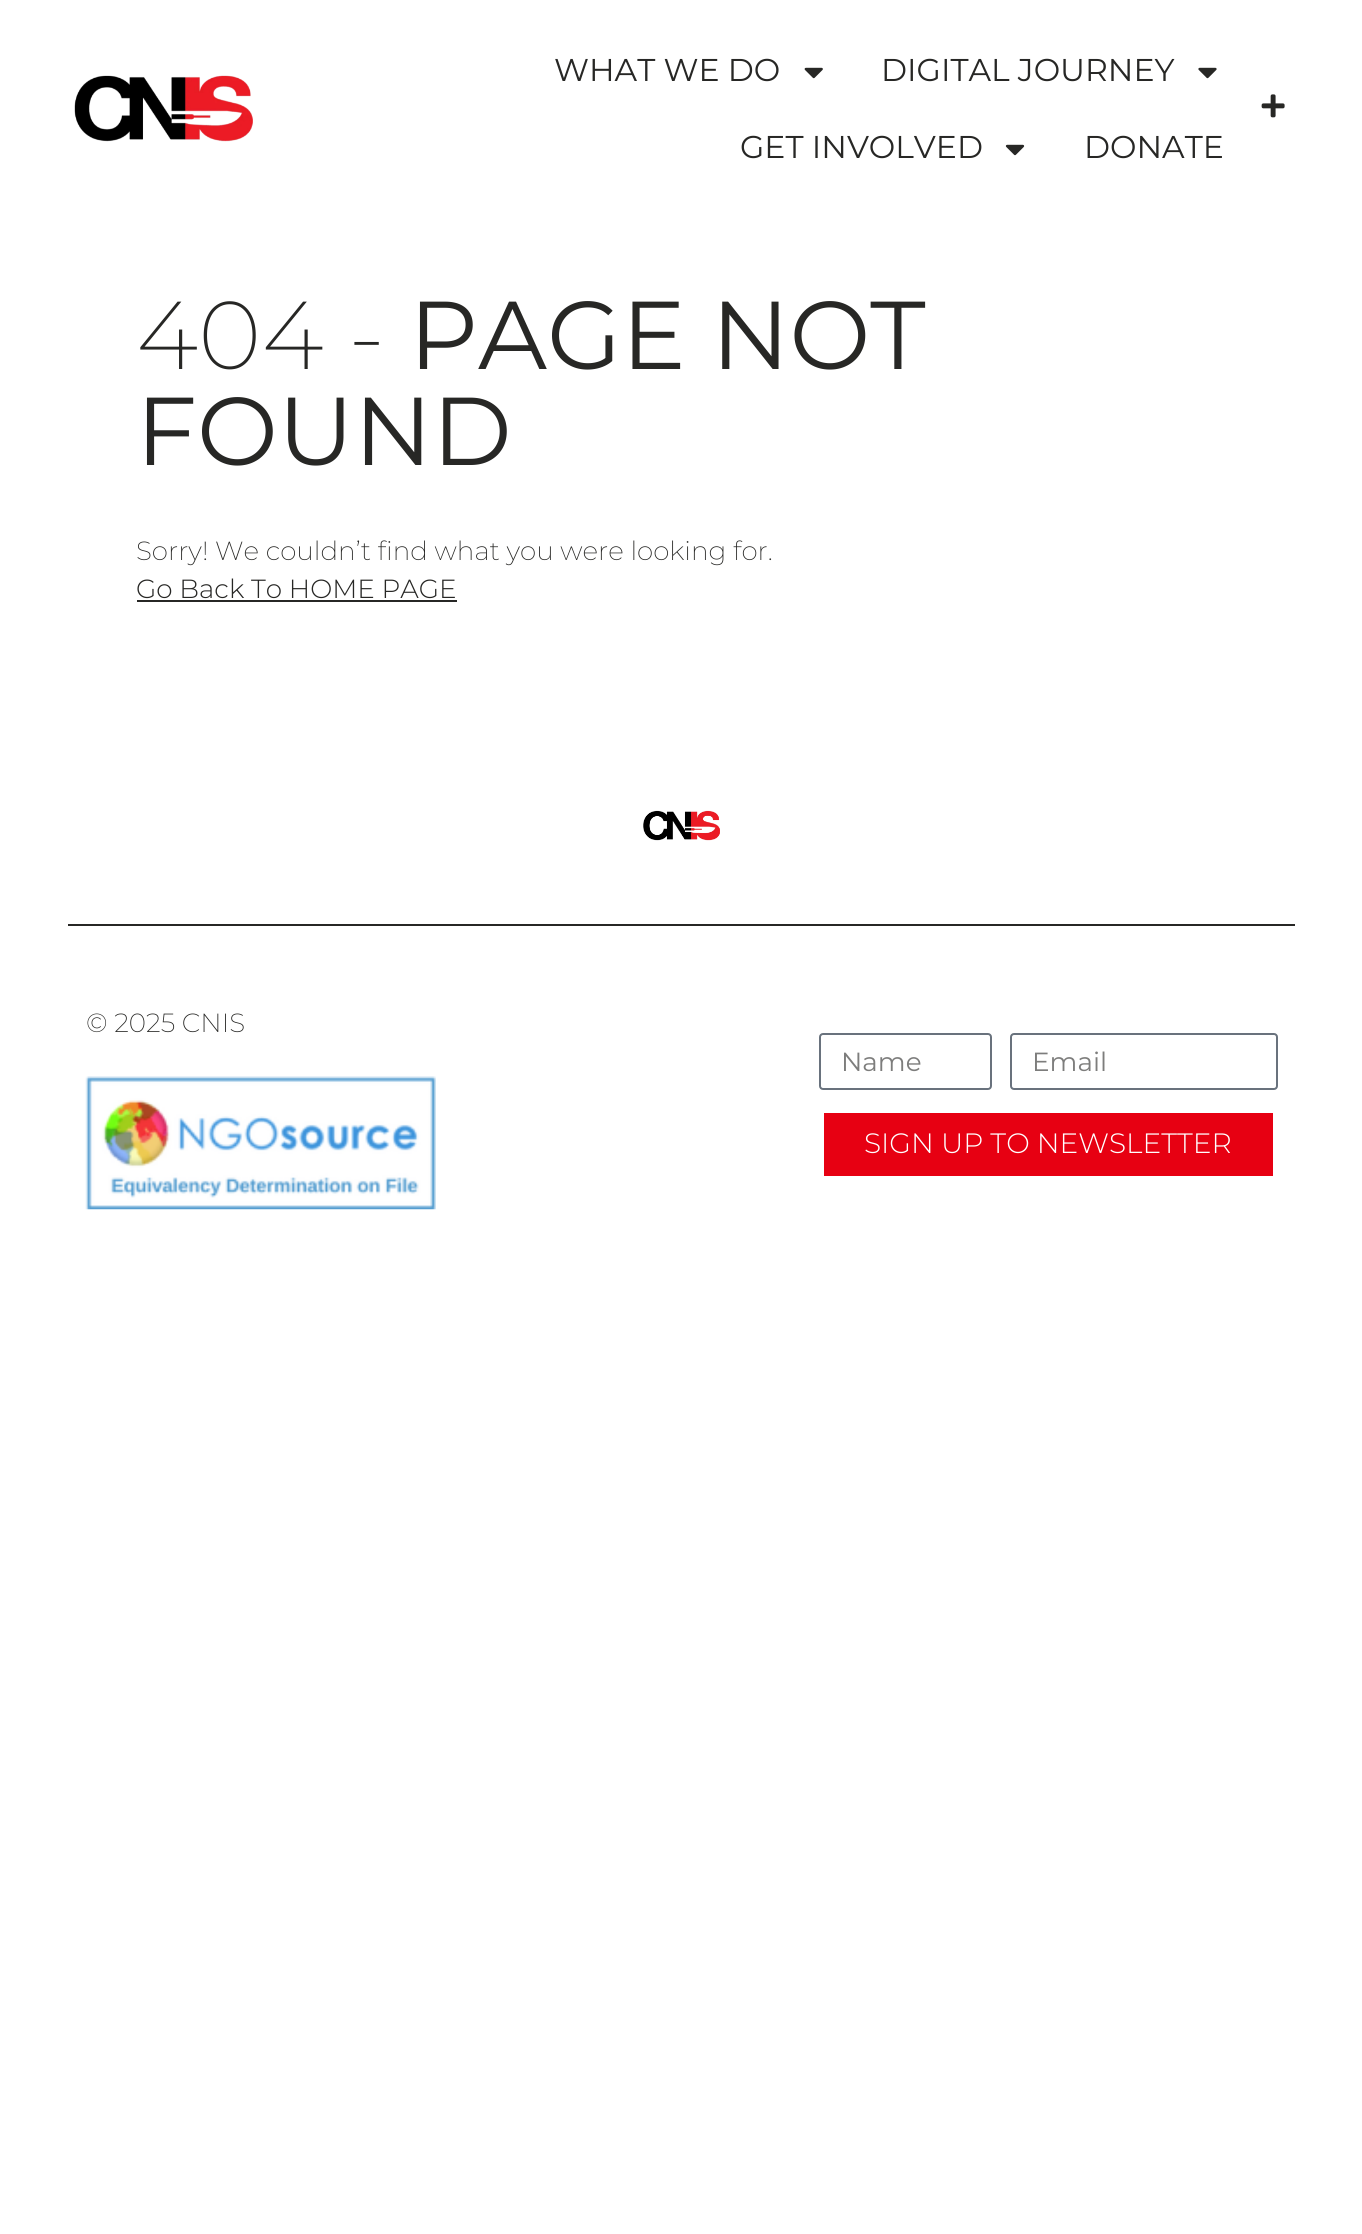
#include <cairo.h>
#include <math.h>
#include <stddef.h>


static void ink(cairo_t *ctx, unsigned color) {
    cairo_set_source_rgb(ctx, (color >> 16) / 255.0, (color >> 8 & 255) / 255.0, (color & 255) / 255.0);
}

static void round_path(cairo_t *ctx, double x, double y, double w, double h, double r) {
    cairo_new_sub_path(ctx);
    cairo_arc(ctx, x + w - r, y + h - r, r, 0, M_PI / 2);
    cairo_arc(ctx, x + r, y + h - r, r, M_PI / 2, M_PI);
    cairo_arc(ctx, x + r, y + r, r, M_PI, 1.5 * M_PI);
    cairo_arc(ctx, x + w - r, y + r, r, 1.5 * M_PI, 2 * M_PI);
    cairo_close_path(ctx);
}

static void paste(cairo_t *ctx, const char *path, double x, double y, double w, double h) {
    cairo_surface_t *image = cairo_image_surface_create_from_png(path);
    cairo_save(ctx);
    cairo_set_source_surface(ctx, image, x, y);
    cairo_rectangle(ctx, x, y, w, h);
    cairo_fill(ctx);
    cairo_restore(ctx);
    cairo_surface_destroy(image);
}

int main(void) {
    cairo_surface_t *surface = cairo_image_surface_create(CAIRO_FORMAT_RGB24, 1362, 2234);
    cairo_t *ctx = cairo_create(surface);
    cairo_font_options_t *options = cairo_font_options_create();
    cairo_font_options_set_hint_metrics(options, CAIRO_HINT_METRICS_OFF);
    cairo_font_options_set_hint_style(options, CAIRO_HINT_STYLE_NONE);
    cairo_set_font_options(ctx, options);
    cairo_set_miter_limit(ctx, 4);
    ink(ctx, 0xFFFFFF);
    cairo_paint(ctx);
    paste(ctx, "media/1.png", 74, 75, 179, 67);
    cairo_select_font_face(ctx, "Montserrat", CAIRO_FONT_SLANT_NORMAL, CAIRO_FONT_WEIGHT_NORMAL);
    cairo_set_font_size(ctx, 31.5);
    ink(ctx, 0x272725);
    cairo_move_to(ctx, 554, 81);
    cairo_show_text(ctx, "WHAT WE DO");
    paste(ctx, "media/2.png", 804, 67, 19, 12);
    cairo_move_to(ctx, 881, 81);
    cairo_show_text(ctx, "DIGITAL JOURNEY");
    paste(ctx, "media/3.png", 1198, 67, 19, 12);
    cairo_move_to(ctx, 740, 158);
    cairo_show_text(ctx, "GET INVOLVED");
    paste(ctx, "media/4.png", 1005, 144, 20, 12);
    cairo_move_to(ctx, 1084, 158);
    cairo_show_text(ctx, "DONATE");
    paste(ctx, "media/5.png", 1261, 94, 24, 24);
    cairo_select_font_face(ctx, "Montserrat ExtraLight", CAIRO_FONT_SLANT_NORMAL, CAIRO_FONT_WEIGHT_NORMAL);
    cairo_set_font_size(ctx, 96.25);
    cairo_move_to(ctx, 136, 369);
    cairo_show_text(ctx, "404 -");
    cairo_select_font_face(ctx, "Montserrat", CAIRO_FONT_SLANT_NORMAL, CAIRO_FONT_WEIGHT_NORMAL);
    cairo_move_to(ctx, 409, 369);
    cairo_show_text(ctx, "PAGE NOT");
    cairo_move_to(ctx, 136, 465);
    cairo_show_text(ctx, "FOUND");
    cairo_select_font_face(ctx, "Montserrat ExtraLight", CAIRO_FONT_SLANT_NORMAL, CAIRO_FONT_WEIGHT_NORMAL);
    cairo_set_font_size(ctx, 26.25);
    cairo_move_to(ctx, 136, 560);
    cairo_show_text(ctx, "Sorry! We couldn’t find what you were looking for.");
    cairo_select_font_face(ctx, "Montserrat Light", CAIRO_FONT_SLANT_NORMAL, CAIRO_FONT_WEIGHT_NORMAL);
    cairo_move_to(ctx, 136, 598);
    cairo_show_text(ctx, "Go Back To HOME PAGE");
    cairo_rectangle(ctx, 137, 600, 320, 2);
    cairo_fill(ctx);
    paste(ctx, "media/6.png", 643, 810, 77, 31);
    cairo_rectangle(ctx, 68, 924, 1227, 2);
    cairo_fill(ctx);
    cairo_select_font_face(ctx, "Montserrat ExtraLight", CAIRO_FONT_SLANT_NORMAL, CAIRO_FONT_WEIGHT_NORMAL);
    cairo_move_to(ctx, 86, 1032);
    cairo_show_text(ctx, "© 2025 CNIS");
    paste(ctx, "media/7.png", 85, 1076, 351, 134);
    round_path(ctx, 820, 1034, 171, 55, 3);
    ink(ctx, 0x69727D);
    cairo_stroke(ctx);
    cairo_select_font_face(ctx, "Montserrat", CAIRO_FONT_SLANT_NORMAL, CAIRO_FONT_WEIGHT_NORMAL);
    ink(ctx, 0x7D7D7C);
    cairo_move_to(ctx, 841, 1071);
    cairo_show_text(ctx, "Name");
    round_path(ctx, 1011, 1034, 266, 55, 3);
    ink(ctx, 0x69727D);
    cairo_stroke(ctx);
    ink(ctx, 0x7D7D7C);
    cairo_move_to(ctx, 1032, 1071);
    cairo_show_text(ctx, "Email");
    ink(ctx, 0xE70012);
    round_path(ctx, 821.5, 1110.5, 454, 68, 1.5);
    cairo_fill_preserve(ctx);
    ink(ctx, 0xFFFFFF);
    cairo_set_line_width(ctx, 5);
    cairo_stroke(ctx);
    cairo_select_font_face(ctx, "Montserrat Light", CAIRO_FONT_SLANT_NORMAL, CAIRO_FONT_WEIGHT_NORMAL);
    cairo_set_font_size(ctx, 28);
    cairo_move_to(ctx, 864, 1153);
    cairo_show_text(ctx, "SIGN UP TO NEWSLETTER");
    cairo_surface_write_to_png(surface, "image.png");
    cairo_font_options_destroy(options);
    cairo_destroy(ctx);
    cairo_surface_destroy(surface);
    return 0;
}
